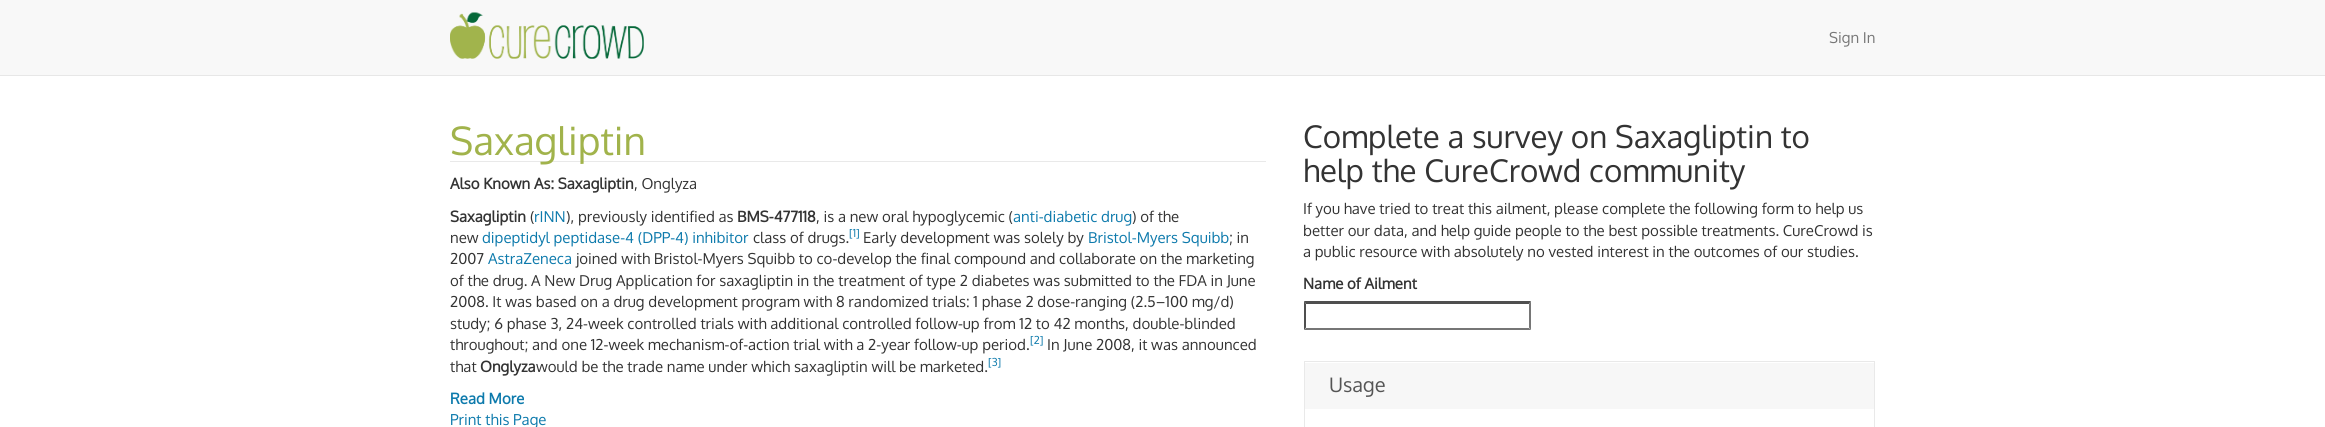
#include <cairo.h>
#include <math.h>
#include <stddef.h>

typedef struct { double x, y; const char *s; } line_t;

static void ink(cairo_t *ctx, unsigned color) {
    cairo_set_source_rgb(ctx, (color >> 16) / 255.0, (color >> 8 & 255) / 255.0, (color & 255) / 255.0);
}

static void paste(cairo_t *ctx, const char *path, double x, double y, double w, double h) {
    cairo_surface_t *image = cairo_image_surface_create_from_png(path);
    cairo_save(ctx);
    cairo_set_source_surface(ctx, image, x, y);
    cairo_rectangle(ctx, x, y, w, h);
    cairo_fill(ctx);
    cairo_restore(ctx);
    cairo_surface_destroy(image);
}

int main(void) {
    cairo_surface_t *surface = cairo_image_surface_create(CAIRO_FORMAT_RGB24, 2325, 427);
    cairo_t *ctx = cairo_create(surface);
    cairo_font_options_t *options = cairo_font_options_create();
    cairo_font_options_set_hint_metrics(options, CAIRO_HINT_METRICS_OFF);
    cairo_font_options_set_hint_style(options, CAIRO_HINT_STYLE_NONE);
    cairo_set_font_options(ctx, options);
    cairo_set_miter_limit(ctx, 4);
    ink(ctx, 0xFFFFFF);
    cairo_paint(ctx);
    ink(ctx, 0xF8F8F8);
    cairo_rectangle(ctx, 0, 0, 2325, 75);
    cairo_fill(ctx);
    ink(ctx, 0xE7E7E7);
    cairo_rectangle(ctx, 0, 75, 2325, 1);
    cairo_fill(ctx);
    paste(ctx, "media/1.png", 450, 12, 194, 47);
    cairo_select_font_face(ctx, "Oxygen", CAIRO_FONT_SLANT_NORMAL, CAIRO_FONT_WEIGHT_NORMAL);
    cairo_set_font_size(ctx, 15);
    ink(ctx, 0x777777);
    cairo_move_to(ctx, 1829, 43);
    cairo_show_text(ctx, "Sign In");
    ink(ctx, 0xE9E9E9);
    cairo_rectangle(ctx, 450, 161, 816, 1);
    cairo_fill(ctx);
    cairo_set_font_size(ctx, 38.75);
    ink(ctx, 0xA1B34B);
    cairo_move_to(ctx, 450, 155);
    cairo_show_text(ctx, "Saxagliptin");
    cairo_select_font_face(ctx, "Oxygen", CAIRO_FONT_SLANT_NORMAL, CAIRO_FONT_WEIGHT_BOLD);
    cairo_set_font_size(ctx, 15);
    ink(ctx, 0x333333);
    cairo_move_to(ctx, 450, 189);
    cairo_show_text(ctx, "Also Known As: Saxagliptin");
    cairo_select_font_face(ctx, "Oxygen", CAIRO_FONT_SLANT_NORMAL, CAIRO_FONT_WEIGHT_NORMAL);
    cairo_move_to(ctx, 634, 189);
    cairo_show_text(ctx, ", Onglyza");
    cairo_select_font_face(ctx, "Oxygen", CAIRO_FONT_SLANT_NORMAL, CAIRO_FONT_WEIGHT_BOLD);
    cairo_move_to(ctx, 450, 222);
    cairo_show_text(ctx, "Saxagliptin");
    cairo_select_font_face(ctx, "Oxygen", CAIRO_FONT_SLANT_NORMAL, CAIRO_FONT_WEIGHT_NORMAL);
    cairo_move_to(ctx, 530, 222);
    cairo_show_text(ctx, "(");
    ink(ctx, 0x0D7AAC);
    cairo_move_to(ctx, 534, 222);
    cairo_show_text(ctx, "rINN");
    ink(ctx, 0x333333);
    cairo_move_to(ctx, 566, 222);
    cairo_show_text(ctx, "), previously identified as");
    cairo_select_font_face(ctx, "Oxygen", CAIRO_FONT_SLANT_NORMAL, CAIRO_FONT_WEIGHT_BOLD);
    cairo_move_to(ctx, 737, 222);
    cairo_show_text(ctx, "BMS-477118");
    cairo_select_font_face(ctx, "Oxygen", CAIRO_FONT_SLANT_NORMAL, CAIRO_FONT_WEIGHT_NORMAL);
    cairo_move_to(ctx, 816, 222);
    cairo_show_text(ctx, ", is a new oral hypoglycemic (");
    ink(ctx, 0x0D7AAC);
    cairo_move_to(ctx, 1013, 222);
    cairo_show_text(ctx, "anti-diabetic drug");
    ink(ctx, 0x333333);
    cairo_move_to(ctx, 1132, 222);
    cairo_show_text(ctx, ") of the");
    cairo_move_to(ctx, 450, 243);
    cairo_show_text(ctx, "new");
    ink(ctx, 0x0D7AAC);
    cairo_move_to(ctx, 482, 243);
    cairo_show_text(ctx, "dipeptidyl peptidase-4 (DPP-4) inhibitor");
    ink(ctx, 0x333333);
    cairo_move_to(ctx, 753, 243);
    cairo_show_text(ctx, "class of drugs.");
    cairo_set_font_size(ctx, 11);
    ink(ctx, 0x0D7AAC);
    cairo_move_to(ctx, 849, 237);
    cairo_show_text(ctx, "[1]");
    cairo_set_font_size(ctx, 15);
    ink(ctx, 0x333333);
    cairo_move_to(ctx, 863, 243);
    cairo_show_text(ctx, "Early development was solely by");
    ink(ctx, 0x0D7AAC);
    cairo_move_to(ctx, 1088, 243);
    cairo_show_text(ctx, "Bristol-Myers Squibb");
    ink(ctx, 0x333333);
    cairo_move_to(ctx, 1229, 243);
    cairo_show_text(ctx, "; in");
    cairo_move_to(ctx, 450, 264);
    cairo_show_text(ctx, "2007");
    ink(ctx, 0x0D7AAC);
    cairo_move_to(ctx, 488, 264);
    cairo_show_text(ctx, "AstraZeneca");
    ink(ctx, 0x333333);
    {
        static const line_t items[] = {
            {576, 264, "joined with Bristol-Myers Squibb to co-develop the final compound and collaborate on the marketing"},
            {450, 286, "of the drug. A New Drug Application for saxagliptin in the treatment of type 2 diabetes was submitted to the FDA in June"},
            {450, 307, "2008. It was based on a drug development program with 8 randomized trials: 1 phase 2 dose-ranging (2.5–100 mg/d)"},
            {450, 329, "study; 6 phase 3, 24-week controlled trials with additional controlled follow-up from 12 to 42 months, double-blinded"},
            {450, 350, "throughout; and one 12-week mechanism-of-action trial with a 2-year follow-up period."},
        };
        for (size_t i = 0; i < sizeof items / sizeof *items; i++) {
            cairo_move_to(ctx, items[i].x, items[i].y);
            cairo_show_text(ctx, items[i].s);
        }
    }
    cairo_set_font_size(ctx, 11);
    ink(ctx, 0x0D7AAC);
    cairo_move_to(ctx, 1030, 344);
    cairo_show_text(ctx, "[2]");
    cairo_set_font_size(ctx, 15);
    ink(ctx, 0x333333);
    cairo_move_to(ctx, 1047, 350);
    cairo_show_text(ctx, "In June 2008, it was announced");
    cairo_move_to(ctx, 450, 372);
    cairo_show_text(ctx, "that");
    cairo_select_font_face(ctx, "Oxygen", CAIRO_FONT_SLANT_NORMAL, CAIRO_FONT_WEIGHT_BOLD);
    cairo_move_to(ctx, 480, 372);
    cairo_show_text(ctx, "Onglyza");
    cairo_select_font_face(ctx, "Oxygen", CAIRO_FONT_SLANT_NORMAL, CAIRO_FONT_WEIGHT_NORMAL);
    cairo_move_to(ctx, 536, 372);
    cairo_show_text(ctx, "would be the trade name under which saxagliptin will be marketed.");
    cairo_set_font_size(ctx, 11);
    ink(ctx, 0x0D7AAC);
    cairo_move_to(ctx, 988, 366);
    cairo_show_text(ctx, "[3]");
    cairo_select_font_face(ctx, "Oxygen", CAIRO_FONT_SLANT_NORMAL, CAIRO_FONT_WEIGHT_BOLD);
    cairo_set_font_size(ctx, 15);
    cairo_move_to(ctx, 450, 404);
    cairo_show_text(ctx, "Read More");
    cairo_select_font_face(ctx, "Oxygen", CAIRO_FONT_SLANT_NORMAL, CAIRO_FONT_WEIGHT_NORMAL);
    cairo_move_to(ctx, 450, 425);
    cairo_show_text(ctx, "Print this Page");
    cairo_set_font_size(ctx, 31.25);
    ink(ctx, 0x333333);
    cairo_move_to(ctx, 1303, 148);
    cairo_show_text(ctx, "Complete a survey on Saxagliptin to");
    cairo_move_to(ctx, 1303, 182);
    cairo_show_text(ctx, "help the CureCrowd community");
    cairo_set_font_size(ctx, 15);
    {
        static const line_t items[] = {
            {1303, 214, "If you have tried to treat this ailment, please complete the following form to help us"},
            {1303, 236, "better our data, and help guide people to the best possible treatments. CureCrowd is"},
            {1303, 257, "a public resource with absolutely no vested interest in the outcomes of our studies."},
        };
        for (size_t i = 0; i < sizeof items / sizeof *items; i++) {
            cairo_move_to(ctx, items[i].x, items[i].y);
            cairo_show_text(ctx, items[i].s);
        }
    }
    cairo_select_font_face(ctx, "Oxygen", CAIRO_FONT_SLANT_NORMAL, CAIRO_FONT_WEIGHT_BOLD);
    cairo_move_to(ctx, 1303, 289);
    cairo_show_text(ctx, "Name of Ailment");
    ink(ctx, 0x4F4F4F);
    cairo_new_path(ctx);
    cairo_move_to(ctx, 1304, 301);
    cairo_line_to(ctx, 1531, 301);
    cairo_line_to(ctx, 1529, 304);
    cairo_line_to(ctx, 1306, 304);
    cairo_close_path(ctx);
    cairo_fill(ctx);
    ink(ctx, 0x767676);
    cairo_new_path(ctx);
    cairo_move_to(ctx, 1531, 301);
    cairo_line_to(ctx, 1531, 330);
    cairo_line_to(ctx, 1529, 327.5);
    cairo_line_to(ctx, 1529, 304);
    cairo_close_path(ctx);
    cairo_fill(ctx);
    cairo_new_path(ctx);
    cairo_move_to(ctx, 1531, 330);
    cairo_line_to(ctx, 1304, 330);
    cairo_line_to(ctx, 1306, 328);
    cairo_line_to(ctx, 1529, 328);
    cairo_close_path(ctx);
    cairo_fill(ctx);
    ink(ctx, 0x4F4F4F);
    cairo_new_path(ctx);
    cairo_move_to(ctx, 1304, 330);
    cairo_line_to(ctx, 1304, 301);
    cairo_line_to(ctx, 1306, 304);
    cairo_line_to(ctx, 1306, 327.5);
    cairo_close_path(ctx);
    cairo_fill(ctx);
    cairo_rectangle(ctx, 1304.5, 361.5, 570, 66);
    ink(ctx, 0xE9E9E9);
    cairo_set_line_width(ctx, 1);
    cairo_stroke(ctx);
    ink(ctx, 0xF7F7F7);
    cairo_rectangle(ctx, 1305, 363, 569, 46);
    cairo_fill(ctx);
    cairo_select_font_face(ctx, "Oxygen", CAIRO_FONT_SLANT_NORMAL, CAIRO_FONT_WEIGHT_NORMAL);
    cairo_set_font_size(ctx, 20);
    ink(ctx, 0x555555);
    cairo_move_to(ctx, 1329, 392);
    cairo_show_text(ctx, "Usage");
    cairo_surface_write_to_png(surface, "image.png");
    cairo_font_options_destroy(options);
    cairo_destroy(ctx);
    cairo_surface_destroy(surface);
    return 0;
}
